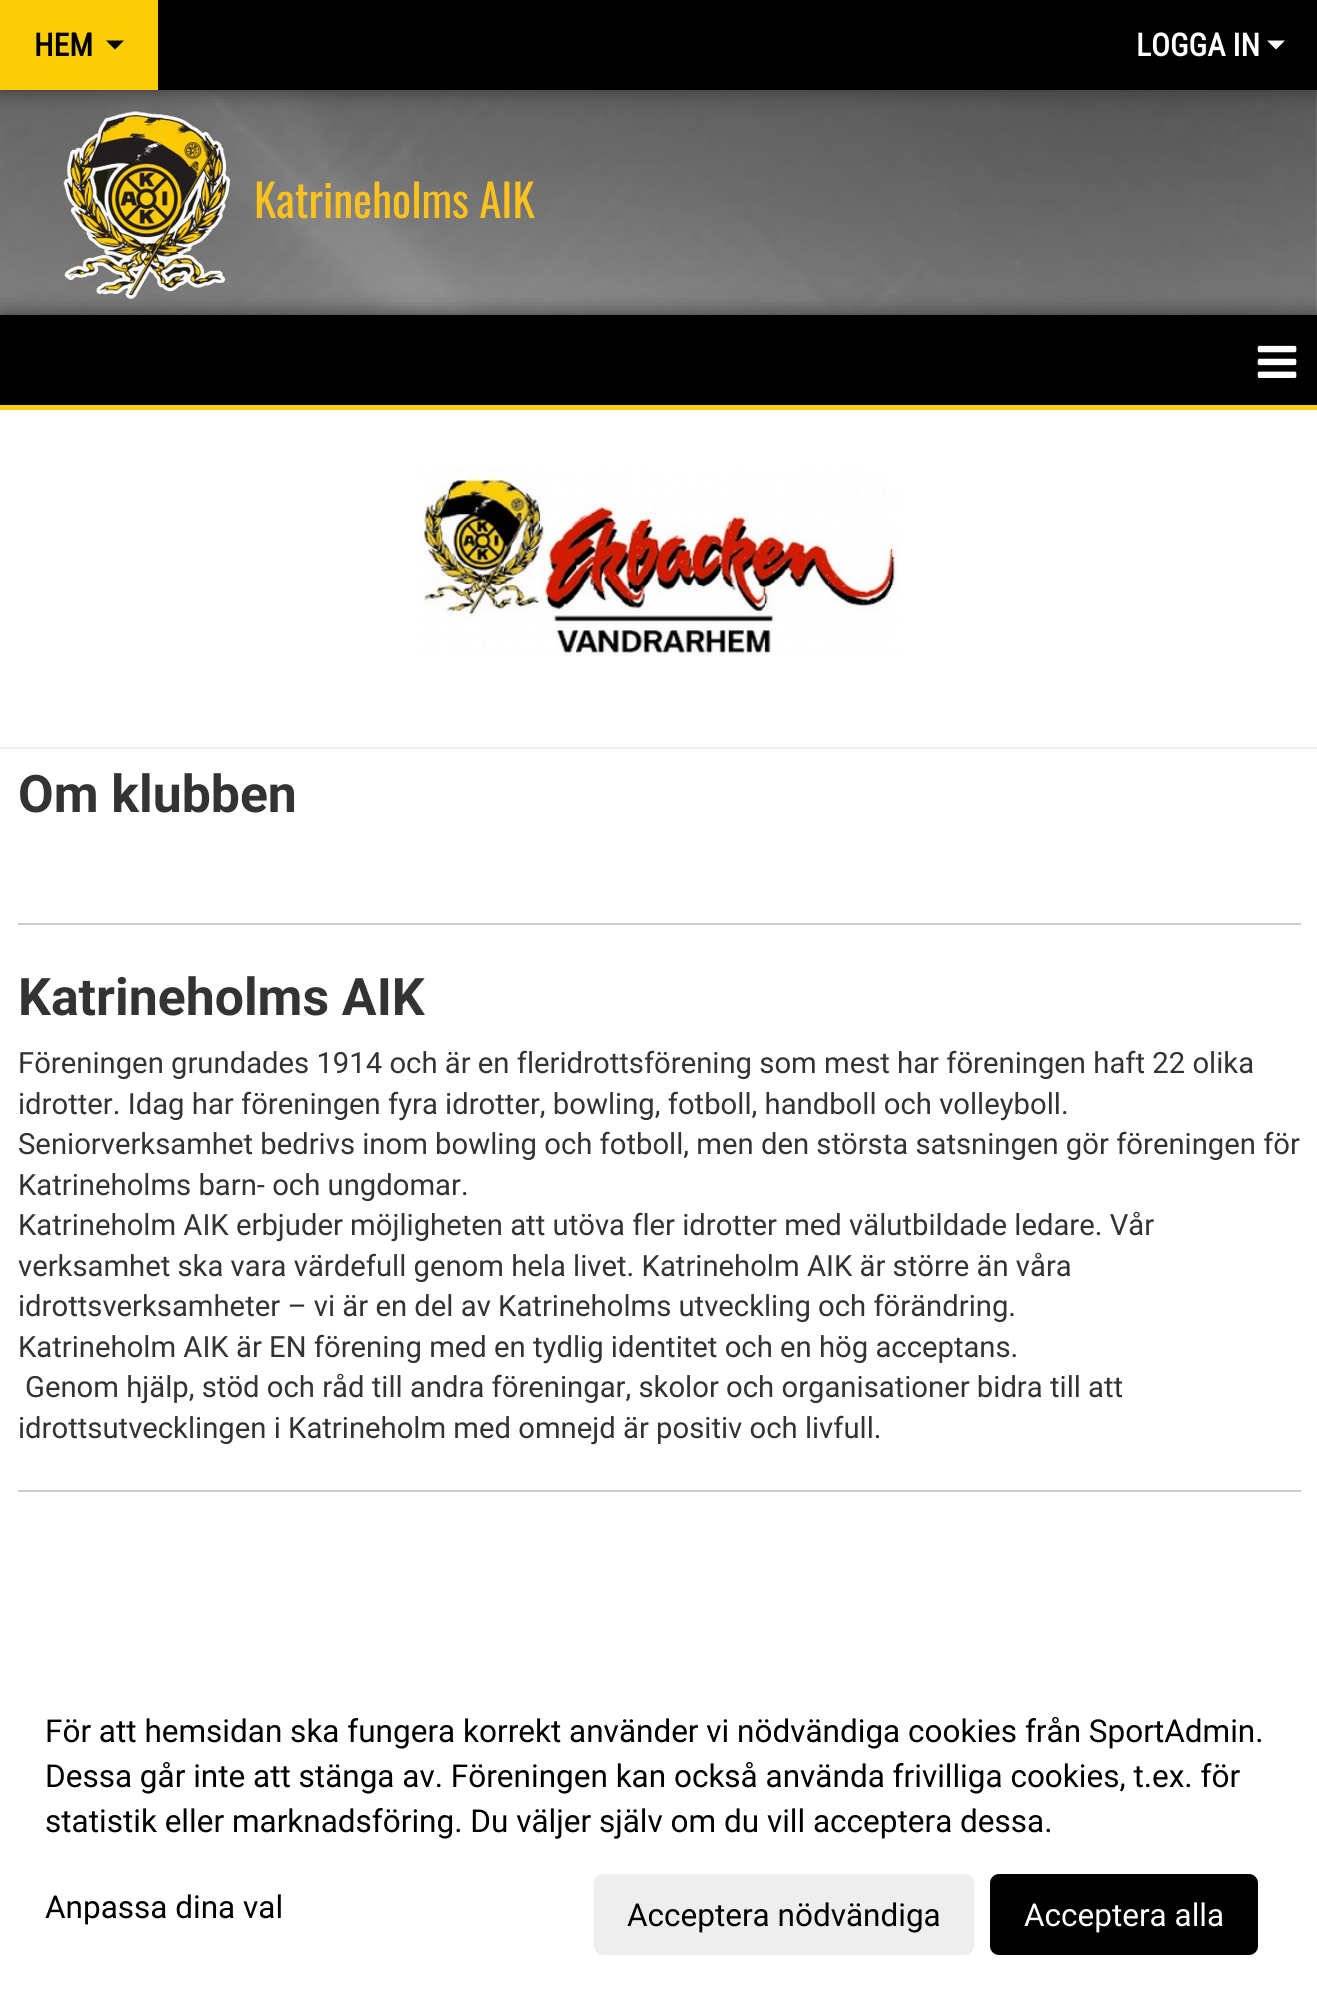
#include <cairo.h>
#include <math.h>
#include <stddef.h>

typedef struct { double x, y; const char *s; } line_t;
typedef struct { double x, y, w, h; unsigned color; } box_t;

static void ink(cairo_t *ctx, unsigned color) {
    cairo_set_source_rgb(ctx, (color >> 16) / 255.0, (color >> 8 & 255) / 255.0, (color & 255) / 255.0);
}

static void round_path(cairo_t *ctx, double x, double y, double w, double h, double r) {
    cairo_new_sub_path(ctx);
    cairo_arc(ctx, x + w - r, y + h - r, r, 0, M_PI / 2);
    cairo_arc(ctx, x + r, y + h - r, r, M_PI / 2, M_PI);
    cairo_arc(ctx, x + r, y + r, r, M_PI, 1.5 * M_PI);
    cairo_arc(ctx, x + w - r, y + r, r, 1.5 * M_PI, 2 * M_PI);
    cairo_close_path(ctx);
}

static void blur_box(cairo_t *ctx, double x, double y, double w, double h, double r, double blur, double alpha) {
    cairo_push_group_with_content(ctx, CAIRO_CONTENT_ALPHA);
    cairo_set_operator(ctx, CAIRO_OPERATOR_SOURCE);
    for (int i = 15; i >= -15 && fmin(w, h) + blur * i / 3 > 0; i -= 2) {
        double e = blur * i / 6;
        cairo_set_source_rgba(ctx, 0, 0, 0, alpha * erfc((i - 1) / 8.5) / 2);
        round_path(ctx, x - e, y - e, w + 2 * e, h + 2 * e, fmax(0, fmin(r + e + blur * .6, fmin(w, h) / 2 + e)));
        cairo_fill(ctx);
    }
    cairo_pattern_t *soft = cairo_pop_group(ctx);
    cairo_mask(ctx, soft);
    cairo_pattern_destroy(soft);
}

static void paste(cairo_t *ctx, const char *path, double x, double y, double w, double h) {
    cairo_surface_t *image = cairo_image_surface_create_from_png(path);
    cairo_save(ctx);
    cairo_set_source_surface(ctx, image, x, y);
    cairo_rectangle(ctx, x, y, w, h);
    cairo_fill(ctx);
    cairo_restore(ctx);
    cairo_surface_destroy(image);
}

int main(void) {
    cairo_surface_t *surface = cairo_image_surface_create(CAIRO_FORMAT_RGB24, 1317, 1999);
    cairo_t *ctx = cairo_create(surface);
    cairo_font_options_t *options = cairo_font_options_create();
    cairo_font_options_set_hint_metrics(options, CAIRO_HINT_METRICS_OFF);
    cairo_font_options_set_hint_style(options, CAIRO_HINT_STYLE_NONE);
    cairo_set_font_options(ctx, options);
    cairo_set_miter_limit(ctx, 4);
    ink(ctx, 0xFFFFFF);
    cairo_paint(ctx);
    paste(ctx, "media/1.png", 0, 90, 1317, 225);
    ink(ctx, 0x333333);
    blur_box(ctx, 0, 0, 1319, 90, 0, 11, 1);
    ink(ctx, 0x000000);
    cairo_rectangle(ctx, 158, 0, 1159, 90);
    cairo_fill(ctx);
    ink(ctx, 0xFBCD06);
    cairo_rectangle(ctx, 0, 0, 158, 90);
    cairo_fill(ctx);
    cairo_select_font_face(ctx, "Roboto Condensed", CAIRO_FONT_SLANT_NORMAL, CAIRO_FONT_WEIGHT_BOLD);
    cairo_set_font_size(ctx, 31.5);
    ink(ctx, 0x000000);
    cairo_move_to(ctx, 34, 56);
    cairo_show_text(ctx, "HEM");
    cairo_new_path(ctx);
    cairo_move_to(ctx, 106, 40.5);
    cairo_line_to(ctx, 124, 40.5);
    cairo_line_to(ctx, 115, 49.5);
    cairo_close_path(ctx);
    cairo_fill(ctx);
    ink(ctx, 0xFFFFFF);
    cairo_move_to(ctx, 1136, 56);
    cairo_show_text(ctx, "LOGGA IN");
    cairo_new_path(ctx);
    cairo_move_to(ctx, 1267, 40.5);
    cairo_line_to(ctx, 1285, 40.5);
    cairo_line_to(ctx, 1276, 49.5);
    cairo_close_path(ctx);
    cairo_fill(ctx);
    ink(ctx, 0x333333);
    blur_box(ctx, 0, 315, 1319, 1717, 0, 11, 1);
    paste(ctx, "media/2.png", 63, 111, 168, 188);
    cairo_select_font_face(ctx, "Oswald", CAIRO_FONT_SLANT_NORMAL, CAIRO_FONT_WEIGHT_NORMAL);
    cairo_set_font_size(ctx, 45);
    ink(ctx, 0xFFC21C);
    cairo_move_to(ctx, 254, 218);
    cairo_show_text(ctx, "Katrineholms AIK");
    {
        static const box_t items[] = {
            {0, 410, 1317, 1589, 0xFFFFFF},
            {0, 315, 1317, 90, 0x000000},
            {0, 405, 1317, 5, 0xFBCD06},
        };
        for (size_t i = 0; i < sizeof items / sizeof *items; i++) {
            ink(ctx, items[i].color);
            cairo_rectangle(ctx, items[i].x, items[i].y, items[i].w, items[i].h);
            cairo_fill(ctx);
        }
    }
    paste(ctx, "media/3.png", 1257, 345, 40, 33);
    paste(ctx, "media/4.png", 414, 468, 486, 189);
    ink(ctx, 0xEEEEEE);
    cairo_rectangle(ctx, 0, 747, 1317, 2);
    cairo_fill(ctx);
    cairo_select_font_face(ctx, "Roboto", CAIRO_FONT_SLANT_NORMAL, CAIRO_FONT_WEIGHT_BOLD);
    cairo_set_font_size(ctx, 51.75);
    ink(ctx, 0x333333);
    cairo_move_to(ctx, 18, 812);
    cairo_show_text(ctx, "Om klubben");
    ink(ctx, 0xCCCCCC);
    cairo_rectangle(ctx, 18, 923, 1283, 2);
    cairo_fill(ctx);
    ink(ctx, 0x333333);
    cairo_move_to(ctx, 18, 1015);
    cairo_show_text(ctx, "Katrineholms AIK");
    cairo_select_font_face(ctx, "Roboto", CAIRO_FONT_SLANT_NORMAL, CAIRO_FONT_WEIGHT_NORMAL);
    cairo_set_font_size(ctx, 29.25);
    {
        static const line_t items[] = {
            {18, 1073, "Föreningen grundades 1914 och är en fleridrottsförening som mest har föreningen haft 22 olika"},
            {18, 1114, "idrotter. Idag har föreningen fyra idrotter, bowling, fotboll, handboll och volleyboll."},
            {18, 1154, "Seniorverksamhet bedrivs inom bowling och fotboll, men den största satsningen gör föreningen för"},
            {18, 1195, "Katrineholms barn- och ungdomar."},
            {18, 1235, "Katrineholm AIK erbjuder möjligheten att utöva fler idrotter med välutbildade ledare. Vår"},
            {18, 1276, "verksamhet ska vara värdefull genom hela livet. Katrineholm AIK är större än våra"},
            {18, 1316, "idrottsverksamheter – vi är en del av Katrineholms utveckling och förändring."},
            {18, 1357, "Katrineholm AIK är EN förening med en tydlig identitet och en hög acceptans."},
            {25, 1397, "Genom hjälp, stöd och råd till andra föreningar, skolor och organisationer bidra till att"},
            {18, 1438, "idrottsutvecklingen i Katrineholm med omnejd är positiv och livfull."},
        };
        for (size_t i = 0; i < sizeof items / sizeof *items; i++) {
            cairo_move_to(ctx, items[i].x, items[i].y);
            cairo_show_text(ctx, items[i].s);
        }
    }
    ink(ctx, 0xCCCCCC);
    cairo_rectangle(ctx, 18, 1490, 1283, 2);
    cairo_fill(ctx);
    cairo_set_font_size(ctx, 31.5);
    ink(ctx, 0x000000);
    {
        static const line_t items[] = {
            {45, 1742, "För att hemsidan ska fungera korrekt använder vi nödvändiga cookies från SportAdmin."},
            {45, 1787, "Dessa går inte att stänga av. Föreningen kan också använda frivilliga cookies, t.ex. för"},
            {45, 1832, "statistik eller marknadsföring. Du väljer själv om du vill acceptera dessa."},
            {45, 1918, "Anpassa dina val"},
        };
        for (size_t i = 0; i < sizeof items / sizeof *items; i++) {
            cairo_move_to(ctx, items[i].x, items[i].y);
            cairo_show_text(ctx, items[i].s);
        }
    }
    ink(ctx, 0xEEEEEE);
    round_path(ctx, 594, 1874, 380, 81, 9);
    cairo_fill(ctx);
    ink(ctx, 0x000000);
    cairo_move_to(ctx, 627, 1926);
    cairo_show_text(ctx, "Acceptera nödvändiga");
    round_path(ctx, 990, 1874, 268, 81, 9);
    cairo_fill(ctx);
    ink(ctx, 0xFFFFFF);
    cairo_move_to(ctx, 1024, 1926);
    cairo_show_text(ctx, "Acceptera alla");
    cairo_surface_write_to_png(surface, "image.png");
    cairo_font_options_destroy(options);
    cairo_destroy(ctx);
    cairo_surface_destroy(surface);
    return 0;
}
